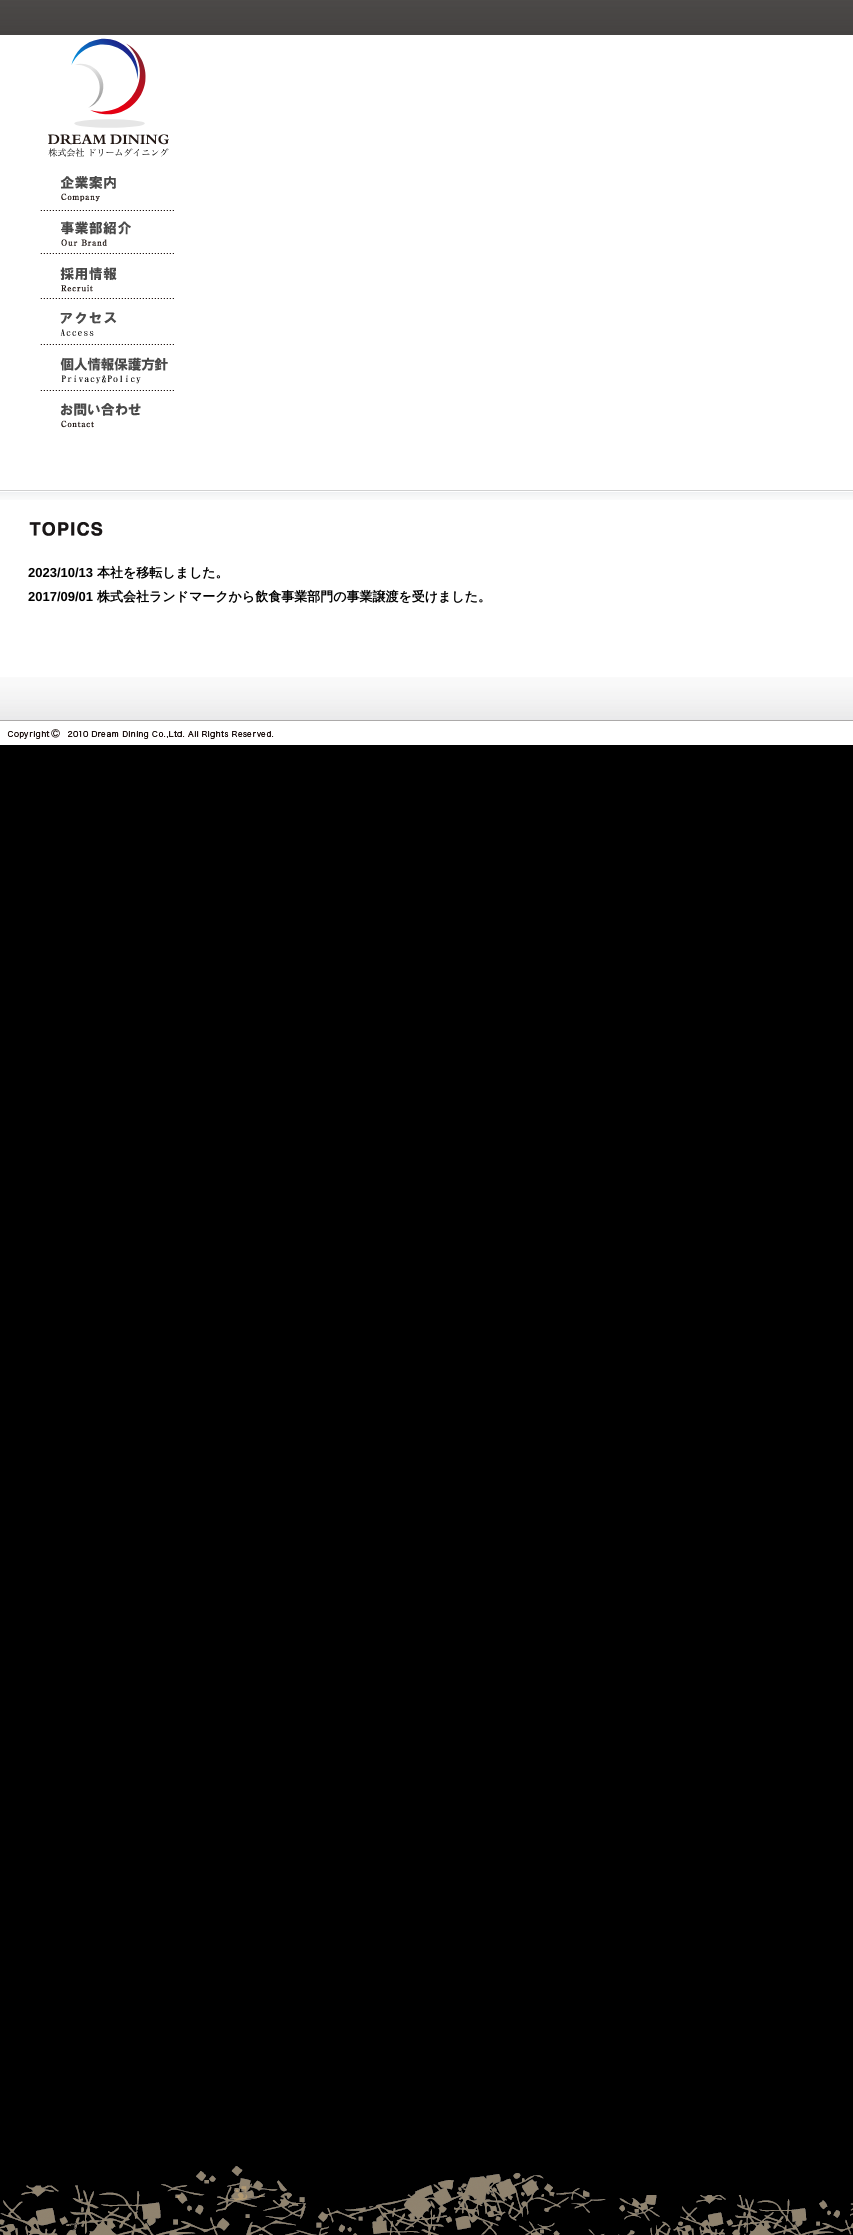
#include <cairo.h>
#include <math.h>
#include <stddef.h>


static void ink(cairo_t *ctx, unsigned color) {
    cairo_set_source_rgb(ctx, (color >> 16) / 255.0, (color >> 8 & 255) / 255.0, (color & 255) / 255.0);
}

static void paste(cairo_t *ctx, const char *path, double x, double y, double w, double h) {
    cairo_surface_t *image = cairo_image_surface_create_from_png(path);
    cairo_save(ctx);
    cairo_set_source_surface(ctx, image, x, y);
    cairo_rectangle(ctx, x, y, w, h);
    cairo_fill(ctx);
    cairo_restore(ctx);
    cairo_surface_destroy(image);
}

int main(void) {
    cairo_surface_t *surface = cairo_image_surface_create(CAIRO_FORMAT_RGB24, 853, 2235);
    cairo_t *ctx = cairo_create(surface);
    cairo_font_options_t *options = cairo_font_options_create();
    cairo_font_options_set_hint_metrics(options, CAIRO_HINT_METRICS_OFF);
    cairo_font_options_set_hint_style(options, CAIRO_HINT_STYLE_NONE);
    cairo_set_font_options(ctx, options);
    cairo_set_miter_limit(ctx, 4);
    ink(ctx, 0x000000);
    cairo_paint(ctx);
    paste(ctx, "media/1.png", 0, 0, 853, 35);
    paste(ctx, "media/2.png", 0, 2166, 853, 69);
    ink(ctx, 0xFFFFFF);
    cairo_rectangle(ctx, 0, 35, 853, 710);
    cairo_fill(ctx);
    paste(ctx, "media/3.png", 48, 38, 121, 119);
    paste(ctx, "media/4.png", 40, 176, 134, 35);
    paste(ctx, "media/5.png", 40, 221, 134, 33);
    paste(ctx, "media/6.png", 40, 267, 134, 32);
    paste(ctx, "media/7.png", 40, 312, 134, 33);
    paste(ctx, "media/8.png", 40, 357, 134, 34);
    paste(ctx, "media/9.png", 60, 403, 81, 25);
    paste(ctx, "media/10.png", 0, 490, 853, 10);
    paste(ctx, "media/11.png", 29, 522, 74, 14);
    cairo_select_font_face(ctx, "Liberation Sans", CAIRO_FONT_SLANT_NORMAL, CAIRO_FONT_WEIGHT_BOLD);
    cairo_set_font_size(ctx, 13);
    ink(ctx, 0x000000);
    cairo_move_to(ctx, 28, 577);
    cairo_show_text(ctx, "2023/10/13");
    cairo_select_font_face(ctx, "WenQuanYi Zen Hei", CAIRO_FONT_SLANT_NORMAL, CAIRO_FONT_WEIGHT_BOLD);
    cairo_move_to(ctx, 97, 577);
    cairo_show_text(ctx, "本社を移転しました。");
    cairo_select_font_face(ctx, "Liberation Sans", CAIRO_FONT_SLANT_NORMAL, CAIRO_FONT_WEIGHT_BOLD);
    cairo_move_to(ctx, 28, 601);
    cairo_show_text(ctx, "2017/09/01");
    cairo_select_font_face(ctx, "WenQuanYi Zen Hei", CAIRO_FONT_SLANT_NORMAL, CAIRO_FONT_WEIGHT_BOLD);
    cairo_move_to(ctx, 97, 601);
    cairo_show_text(ctx, "株式会社ランドマークから飲食事業部門の事業譲渡を受けました。");
    paste(ctx, "media/12.png", 0, 677, 853, 44);
    paste(ctx, "media/13.png", 7, 729, 267, 10);
    cairo_surface_write_to_png(surface, "image.png");
    cairo_font_options_destroy(options);
    cairo_destroy(ctx);
    cairo_surface_destroy(surface);
    return 0;
}
